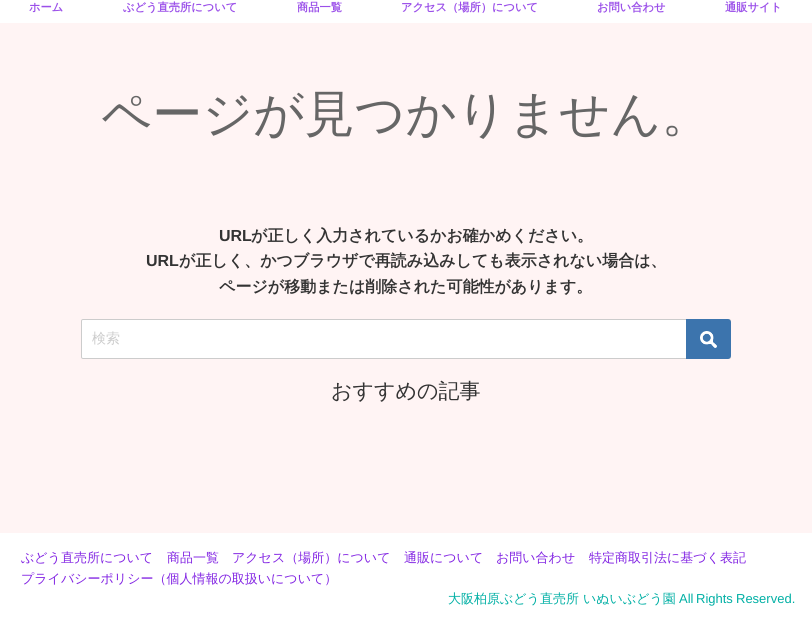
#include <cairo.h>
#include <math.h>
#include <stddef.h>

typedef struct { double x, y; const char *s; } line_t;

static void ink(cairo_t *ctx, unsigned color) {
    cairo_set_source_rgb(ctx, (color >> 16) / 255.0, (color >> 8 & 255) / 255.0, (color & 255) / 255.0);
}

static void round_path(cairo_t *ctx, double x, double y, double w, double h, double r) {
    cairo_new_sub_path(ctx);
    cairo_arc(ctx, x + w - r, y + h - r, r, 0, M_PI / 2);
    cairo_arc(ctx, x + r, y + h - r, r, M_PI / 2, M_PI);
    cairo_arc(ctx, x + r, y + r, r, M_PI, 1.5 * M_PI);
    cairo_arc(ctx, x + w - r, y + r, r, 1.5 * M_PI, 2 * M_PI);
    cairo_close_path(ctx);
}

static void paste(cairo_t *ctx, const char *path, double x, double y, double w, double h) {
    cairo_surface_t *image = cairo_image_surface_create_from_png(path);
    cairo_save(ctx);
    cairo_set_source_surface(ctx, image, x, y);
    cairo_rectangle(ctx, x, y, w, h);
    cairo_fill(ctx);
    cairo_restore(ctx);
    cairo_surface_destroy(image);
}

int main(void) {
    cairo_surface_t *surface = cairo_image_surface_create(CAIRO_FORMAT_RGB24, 812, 625);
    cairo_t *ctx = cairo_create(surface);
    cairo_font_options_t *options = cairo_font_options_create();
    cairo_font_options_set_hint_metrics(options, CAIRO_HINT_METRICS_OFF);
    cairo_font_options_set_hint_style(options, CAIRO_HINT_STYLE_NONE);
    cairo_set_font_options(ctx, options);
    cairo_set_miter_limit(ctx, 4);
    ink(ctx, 0xFFF4F4);
    cairo_paint(ctx);
    ink(ctx, 0xFFFFFF);
    cairo_rectangle(ctx, 0, 0, 812, 23);
    cairo_fill(ctx);
    cairo_select_font_face(ctx, "WenQuanYi Zen Hei", CAIRO_FONT_SLANT_NORMAL, CAIRO_FONT_WEIGHT_BOLD);
    cairo_set_font_size(ctx, 11.25);
    ink(ctx, 0x9B50E9);
    {
        static const line_t items[] = {
            {29, 11, "ホーム"},
            {123, 11, "ぶどう直売所について"},
            {297, 11, "商品一覧"},
            {401, 11, "アクセス（場所）について"},
            {597, 11, "お問い合わせ"},
            {725, 11, "通販サイト"},
        };
        for (size_t i = 0; i < sizeof items / sizeof *items; i++) {
            cairo_move_to(ctx, items[i].x, items[i].y);
            cairo_show_text(ctx, items[i].s);
        }
    }
    cairo_select_font_face(ctx, "WenQuanYi Zen Hei Medium", CAIRO_FONT_SLANT_NORMAL, CAIRO_FONT_WEIGHT_NORMAL);
    cairo_set_font_size(ctx, 50);
    ink(ctx, 0x666666);
    cairo_move_to(ctx, 101, 131);
    cairo_show_text(ctx, "ページが見つかりません。");
    cairo_select_font_face(ctx, "Liberation Sans", CAIRO_FONT_SLANT_NORMAL, CAIRO_FONT_WEIGHT_BOLD);
    cairo_set_font_size(ctx, 16);
    ink(ctx, 0x333333);
    cairo_move_to(ctx, 219, 241);
    cairo_show_text(ctx, "URL");
    cairo_select_font_face(ctx, "WenQuanYi Zen Hei", CAIRO_FONT_SLANT_NORMAL, CAIRO_FONT_WEIGHT_BOLD);
    cairo_move_to(ctx, 251, 241);
    cairo_show_text(ctx, "が正しく入力されているかお確かめください。");
    cairo_select_font_face(ctx, "Liberation Sans", CAIRO_FONT_SLANT_NORMAL, CAIRO_FONT_WEIGHT_BOLD);
    cairo_move_to(ctx, 146, 266);
    cairo_show_text(ctx, "URL");
    cairo_select_font_face(ctx, "WenQuanYi Zen Hei", CAIRO_FONT_SLANT_NORMAL, CAIRO_FONT_WEIGHT_BOLD);
    cairo_move_to(ctx, 179, 266);
    cairo_show_text(ctx, "が正しく、かつブラウザで再読み込みしても表示されない場合は、");
    cairo_move_to(ctx, 219, 292);
    cairo_show_text(ctx, "ページが移動または削除された可能性があります。");
    ink(ctx, 0xFFFFFF);
    round_path(ctx, 81.5, 319.5, 649, 39, 1.5);
    cairo_fill_preserve(ctx);
    ink(ctx, 0xCCCCCC);
    cairo_set_line_width(ctx, 1);
    cairo_stroke(ctx);
    cairo_select_font_face(ctx, "WenQuanYi Zen Hei Medium", CAIRO_FONT_SLANT_NORMAL, CAIRO_FONT_WEIGHT_NORMAL);
    cairo_set_font_size(ctx, 14);
    cairo_move_to(ctx, 92, 343);
    cairo_show_text(ctx, "検索");
    ink(ctx, 0x3C74AD);
    cairo_new_path(ctx);
    cairo_move_to(ctx, 686, 319);
    cairo_line_to(ctx, 728, 319);
    cairo_curve_to(ctx, 729.5, 319, 731, 320.5, 731, 322);
    cairo_line_to(ctx, 731, 356);
    cairo_curve_to(ctx, 731, 357.5, 729.5, 359, 728, 359);
    cairo_line_to(ctx, 686, 359);
    cairo_close_path(ctx);
    cairo_fill(ctx);
    paste(ctx, "media/1.png", 700, 331, 17, 17);
    cairo_set_font_size(ctx, 21);
    ink(ctx, 0x333333);
    cairo_move_to(ctx, 331, 398);
    cairo_show_text(ctx, "おすすめの記事");
    ink(ctx, 0xFFFFFF);
    cairo_rectangle(ctx, 0, 533, 812, 92);
    cairo_fill(ctx);
    cairo_set_font_size(ctx, 13);
    ink(ctx, 0x8224E3);
    {
        static const line_t items[] = {
            {21, 562, "ぶどう直売所について"},
            {167, 562, "商品一覧"},
            {232, 562, "アクセス（場所）について"},
            {404, 562, "通販について"},
            {496, 562, "お問い合わせ"},
            {589, 562, "特定商取引法に基づく表記"},
            {21, 583, "プライバシーポリシー（個人情報の取扱いについて）"},
        };
        for (size_t i = 0; i < sizeof items / sizeof *items; i++) {
            cairo_move_to(ctx, items[i].x, items[i].y);
            cairo_show_text(ctx, items[i].s);
        }
    }
    ink(ctx, 0x00AFA4);
    cairo_move_to(ctx, 448, 603);
    cairo_show_text(ctx, "大阪柏原ぶどう直売所");
    cairo_move_to(ctx, 583, 603);
    cairo_show_text(ctx, "いぬいぶどう園");
    cairo_select_font_face(ctx, "Liberation Sans", CAIRO_FONT_SLANT_NORMAL, CAIRO_FONT_WEIGHT_NORMAL);
    {
        static const line_t items[] = {
            {679, 603, "All"},
            {696, 603, "Rights"},
            {736, 603, "Reserved."},
        };
        for (size_t i = 0; i < sizeof items / sizeof *items; i++) {
            cairo_move_to(ctx, items[i].x, items[i].y);
            cairo_show_text(ctx, items[i].s);
        }
    }
    cairo_surface_write_to_png(surface, "image.png");
    cairo_font_options_destroy(options);
    cairo_destroy(ctx);
    cairo_surface_destroy(surface);
    return 0;
}
